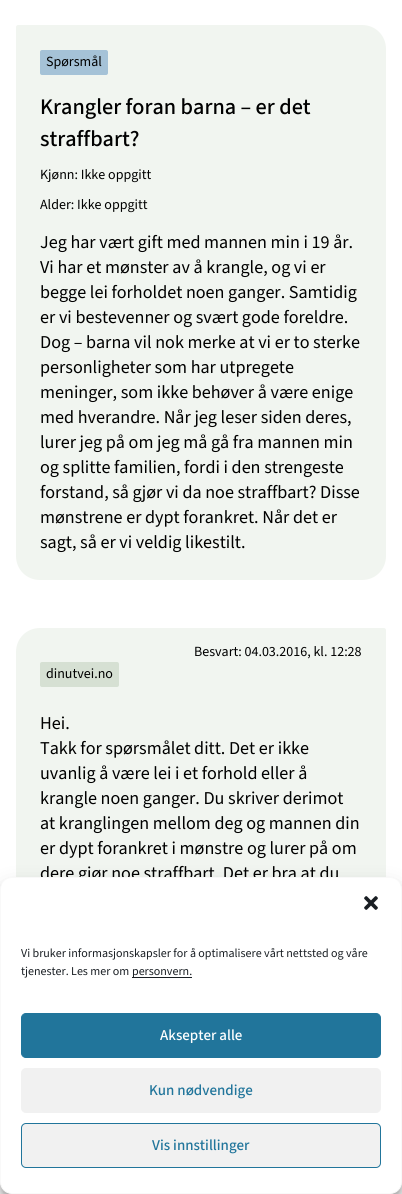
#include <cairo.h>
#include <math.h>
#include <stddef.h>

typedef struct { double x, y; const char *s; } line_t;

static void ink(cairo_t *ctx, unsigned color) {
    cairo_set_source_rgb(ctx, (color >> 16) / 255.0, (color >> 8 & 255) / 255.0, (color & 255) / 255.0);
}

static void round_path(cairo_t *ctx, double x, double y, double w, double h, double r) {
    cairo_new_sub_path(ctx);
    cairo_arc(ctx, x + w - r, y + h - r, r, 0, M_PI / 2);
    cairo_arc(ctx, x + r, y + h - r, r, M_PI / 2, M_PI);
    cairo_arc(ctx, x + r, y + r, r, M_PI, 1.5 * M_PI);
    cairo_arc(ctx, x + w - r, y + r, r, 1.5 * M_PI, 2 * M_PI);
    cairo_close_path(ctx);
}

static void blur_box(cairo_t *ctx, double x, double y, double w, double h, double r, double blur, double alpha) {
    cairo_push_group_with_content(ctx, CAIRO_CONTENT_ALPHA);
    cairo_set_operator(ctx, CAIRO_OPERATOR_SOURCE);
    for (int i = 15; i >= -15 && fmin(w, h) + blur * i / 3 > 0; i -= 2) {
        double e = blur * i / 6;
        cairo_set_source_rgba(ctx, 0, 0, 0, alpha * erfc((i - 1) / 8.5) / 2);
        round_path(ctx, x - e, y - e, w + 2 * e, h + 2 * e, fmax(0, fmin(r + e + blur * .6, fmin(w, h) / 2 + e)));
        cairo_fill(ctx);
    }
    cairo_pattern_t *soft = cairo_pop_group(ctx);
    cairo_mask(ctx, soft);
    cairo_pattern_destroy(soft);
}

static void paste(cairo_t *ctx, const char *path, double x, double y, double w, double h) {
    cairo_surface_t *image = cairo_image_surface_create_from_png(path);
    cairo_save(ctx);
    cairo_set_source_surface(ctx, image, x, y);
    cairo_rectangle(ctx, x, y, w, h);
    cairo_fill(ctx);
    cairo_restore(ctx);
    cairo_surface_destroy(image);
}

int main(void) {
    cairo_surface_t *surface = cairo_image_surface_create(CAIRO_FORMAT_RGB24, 402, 1194);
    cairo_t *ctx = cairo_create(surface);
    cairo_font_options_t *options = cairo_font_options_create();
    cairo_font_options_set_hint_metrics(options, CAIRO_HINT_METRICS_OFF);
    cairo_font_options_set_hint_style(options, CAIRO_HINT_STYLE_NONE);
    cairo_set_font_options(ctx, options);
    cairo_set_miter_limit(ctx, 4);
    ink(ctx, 0xFFFFFF);
    cairo_paint(ctx);
    ink(ctx, 0xF1F5F0);
    cairo_new_path(ctx);
    cairo_move_to(ctx, 18, 25);
    cairo_line_to(ctx, 362, 25);
    cairo_curve_to(ctx, 375.5, 25, 386, 35.5, 386, 49);
    cairo_line_to(ctx, 386, 556);
    cairo_curve_to(ctx, 386, 569.5, 375.5, 580, 362, 580);
    cairo_line_to(ctx, 40, 580);
    cairo_curve_to(ctx, 26.5, 580, 16, 569.5, 16, 556);
    cairo_line_to(ctx, 16, 27);
    cairo_curve_to(ctx, 16, 26, 17, 25, 18, 25);
    cairo_close_path(ctx);
    cairo_fill(ctx);
    ink(ctx, 0xA5C2D7);
    round_path(ctx, 40, 50, 68, 25, 2);
    cairo_fill(ctx);
    cairo_select_font_face(ctx, "Source Sans 3", CAIRO_FONT_SLANT_NORMAL, CAIRO_FONT_WEIGHT_NORMAL);
    cairo_set_font_size(ctx, 14);
    ink(ctx, 0x000000);
    cairo_move_to(ctx, 46, 66);
    cairo_show_text(ctx, "Spørsmål");
    cairo_select_font_face(ctx, "Source Sans 3 Medium", CAIRO_FONT_SLANT_NORMAL, CAIRO_FONT_WEIGHT_NORMAL);
    cairo_set_font_size(ctx, 22.25);
    cairo_move_to(ctx, 40, 114);
    cairo_show_text(ctx, "Krangler foran barna – er det");
    cairo_move_to(ctx, 40, 146);
    cairo_show_text(ctx, "straffbart?");
    cairo_select_font_face(ctx, "Source Sans 3", CAIRO_FONT_SLANT_NORMAL, CAIRO_FONT_WEIGHT_NORMAL);
    cairo_set_font_size(ctx, 14);
    cairo_move_to(ctx, 40, 179);
    cairo_show_text(ctx, "Kjønn: Ikke oppgitt");
    cairo_move_to(ctx, 40, 209);
    cairo_show_text(ctx, "Alder: Ikke oppgitt");
    cairo_set_font_size(ctx, 18.1);
    {
        static const line_t items[] = {
            {40, 248, "Jeg har vært gift med mannen min i 19 år."},
            {40, 273, "Vi har et mønster av å krangle, og vi er"},
            {40, 298, "begge lei forholdet noen ganger. Samtidig"},
            {40, 323, "er vi bestevenner og svært gode foreldre."},
            {40, 348, "Dog – barna vil nok merke at vi er to sterke"},
            {40, 373, "personligheter som har utpregete"},
            {40, 398, "meninger, som ikke behøver å være enige"},
            {40, 423, "med hverandre. Når jeg leser siden deres,"},
            {40, 448, "lurer jeg på om jeg må gå fra mannen min"},
            {40, 473, "og splitte familien, fordi i den strengeste"},
            {40, 498, "forstand, så gjør vi da noe straffbart? Disse"},
            {40, 523, "mønstrene er dypt forankret. Når det er"},
            {40, 548, "sagt, så er vi veldig likestilt."},
        };
        for (size_t i = 0; i < sizeof items / sizeof *items; i++) {
            cairo_move_to(ctx, items[i].x, items[i].y);
            cairo_show_text(ctx, items[i].s);
        }
    }
    ink(ctx, 0xF1F5F0);
    cairo_new_path(ctx);
    cairo_move_to(ctx, 40, 628);
    cairo_line_to(ctx, 384, 628);
    cairo_curve_to(ctx, 385, 628, 386, 629, 386, 630);
    cairo_line_to(ctx, 386, 1194);
    cairo_curve_to(ctx, 386, 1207.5, 375.5, 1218, 362, 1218);
    cairo_line_to(ctx, 40, 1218);
    cairo_curve_to(ctx, 26.5, 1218, 16, 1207.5, 16, 1194);
    cairo_line_to(ctx, 16, 652);
    cairo_curve_to(ctx, 16, 638.5, 26.5, 628, 40, 628);
    cairo_close_path(ctx);
    cairo_fill(ctx);
    cairo_set_font_size(ctx, 14);
    ink(ctx, 0x000000);
    cairo_move_to(ctx, 194, 656);
    cairo_show_text(ctx, "Besvart: 04.03.2016, kl. 12:28");
    ink(ctx, 0xD6E0D3);
    round_path(ctx, 40, 662, 79, 25, 2);
    cairo_fill(ctx);
    ink(ctx, 0x000000);
    cairo_move_to(ctx, 46, 678);
    cairo_show_text(ctx, "dinutvei.no");
    cairo_set_font_size(ctx, 18.1);
    {
        static const line_t items[] = {
            {40, 729, "Hei."},
            {40, 754, "Takk for spørsmålet ditt. Det er ikke"},
            {40, 779, "uvanlig å være lei i et forhold eller å"},
            {40, 804, "krangle noen ganger. Du skriver derimot"},
            {40, 829, "at kranglingen mellom deg og mannen din"},
            {40, 854, "er dypt forankret i mønstre og lurer på om"},
            {40, 879, "dere gjør noe straffbart. Det er bra at du"},
        };
        for (size_t i = 0; i < sizeof items / sizeof *items; i++) {
            cairo_move_to(ctx, items[i].x, items[i].y);
            cairo_show_text(ctx, items[i].s);
        }
    }
    ink(ctx, 0x000000);
    blur_box(ctx, 0, 883, 402, 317, 12, 3, 0.23);
    blur_box(ctx, 0, 887, 402, 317, 12, 10, 0.19);
    ink(ctx, 0xFFFFFF);
    round_path(ctx, 0.5, 877.5, 401, 316, 11.5);
    cairo_fill_preserve(ctx);
    ink(ctx, 0xF9F9F9);
    cairo_set_line_width(ctx, 1);
    cairo_stroke(ctx);
    paste(ctx, "media/1.png", 364, 896, 14, 14);
    cairo_set_font_size(ctx, 12);
    ink(ctx, 0x191E23);
    cairo_move_to(ctx, 21, 957);
    cairo_show_text(ctx, "Vi bruker informasjonskapsler for å optimalisere vårt nettsted og våre");
    cairo_move_to(ctx, 21, 975);
    cairo_show_text(ctx, "tjenester. Les mer om");
    cairo_rectangle(ctx, 132, 977, 60, 1);
    cairo_fill(ctx);
    cairo_move_to(ctx, 132, 975);
    cairo_show_text(ctx, "personvern.");
    ink(ctx, 0x21759B);
    round_path(ctx, 21.5, 1013.5, 359, 44, 4.5);
    cairo_fill_preserve(ctx);
    cairo_stroke(ctx);
    cairo_select_font_face(ctx, "Source Sans 3 Medium", CAIRO_FONT_SLANT_NORMAL, CAIRO_FONT_WEIGHT_NORMAL);
    cairo_set_font_size(ctx, 15);
    ink(ctx, 0xFFFFFF);
    cairo_move_to(ctx, 160, 1040);
    cairo_show_text(ctx, "Aksepter alle");
    ink(ctx, 0xF1F1F1);
    round_path(ctx, 21.5, 1068.5, 359, 44, 4.5);
    cairo_fill_preserve(ctx);
    cairo_stroke(ctx);
    ink(ctx, 0x21759B);
    cairo_move_to(ctx, 149, 1095);
    cairo_show_text(ctx, "Kun nødvendige");
    ink(ctx, 0xF1F1F1);
    round_path(ctx, 21.5, 1123.5, 359, 44, 4.5);
    cairo_fill_preserve(ctx);
    ink(ctx, 0x21759B);
    cairo_stroke(ctx);
    cairo_move_to(ctx, 152, 1150);
    cairo_show_text(ctx, "Vis innstillinger");
    cairo_surface_write_to_png(surface, "image.png");
    cairo_font_options_destroy(options);
    cairo_destroy(ctx);
    cairo_surface_destroy(surface);
    return 0;
}
